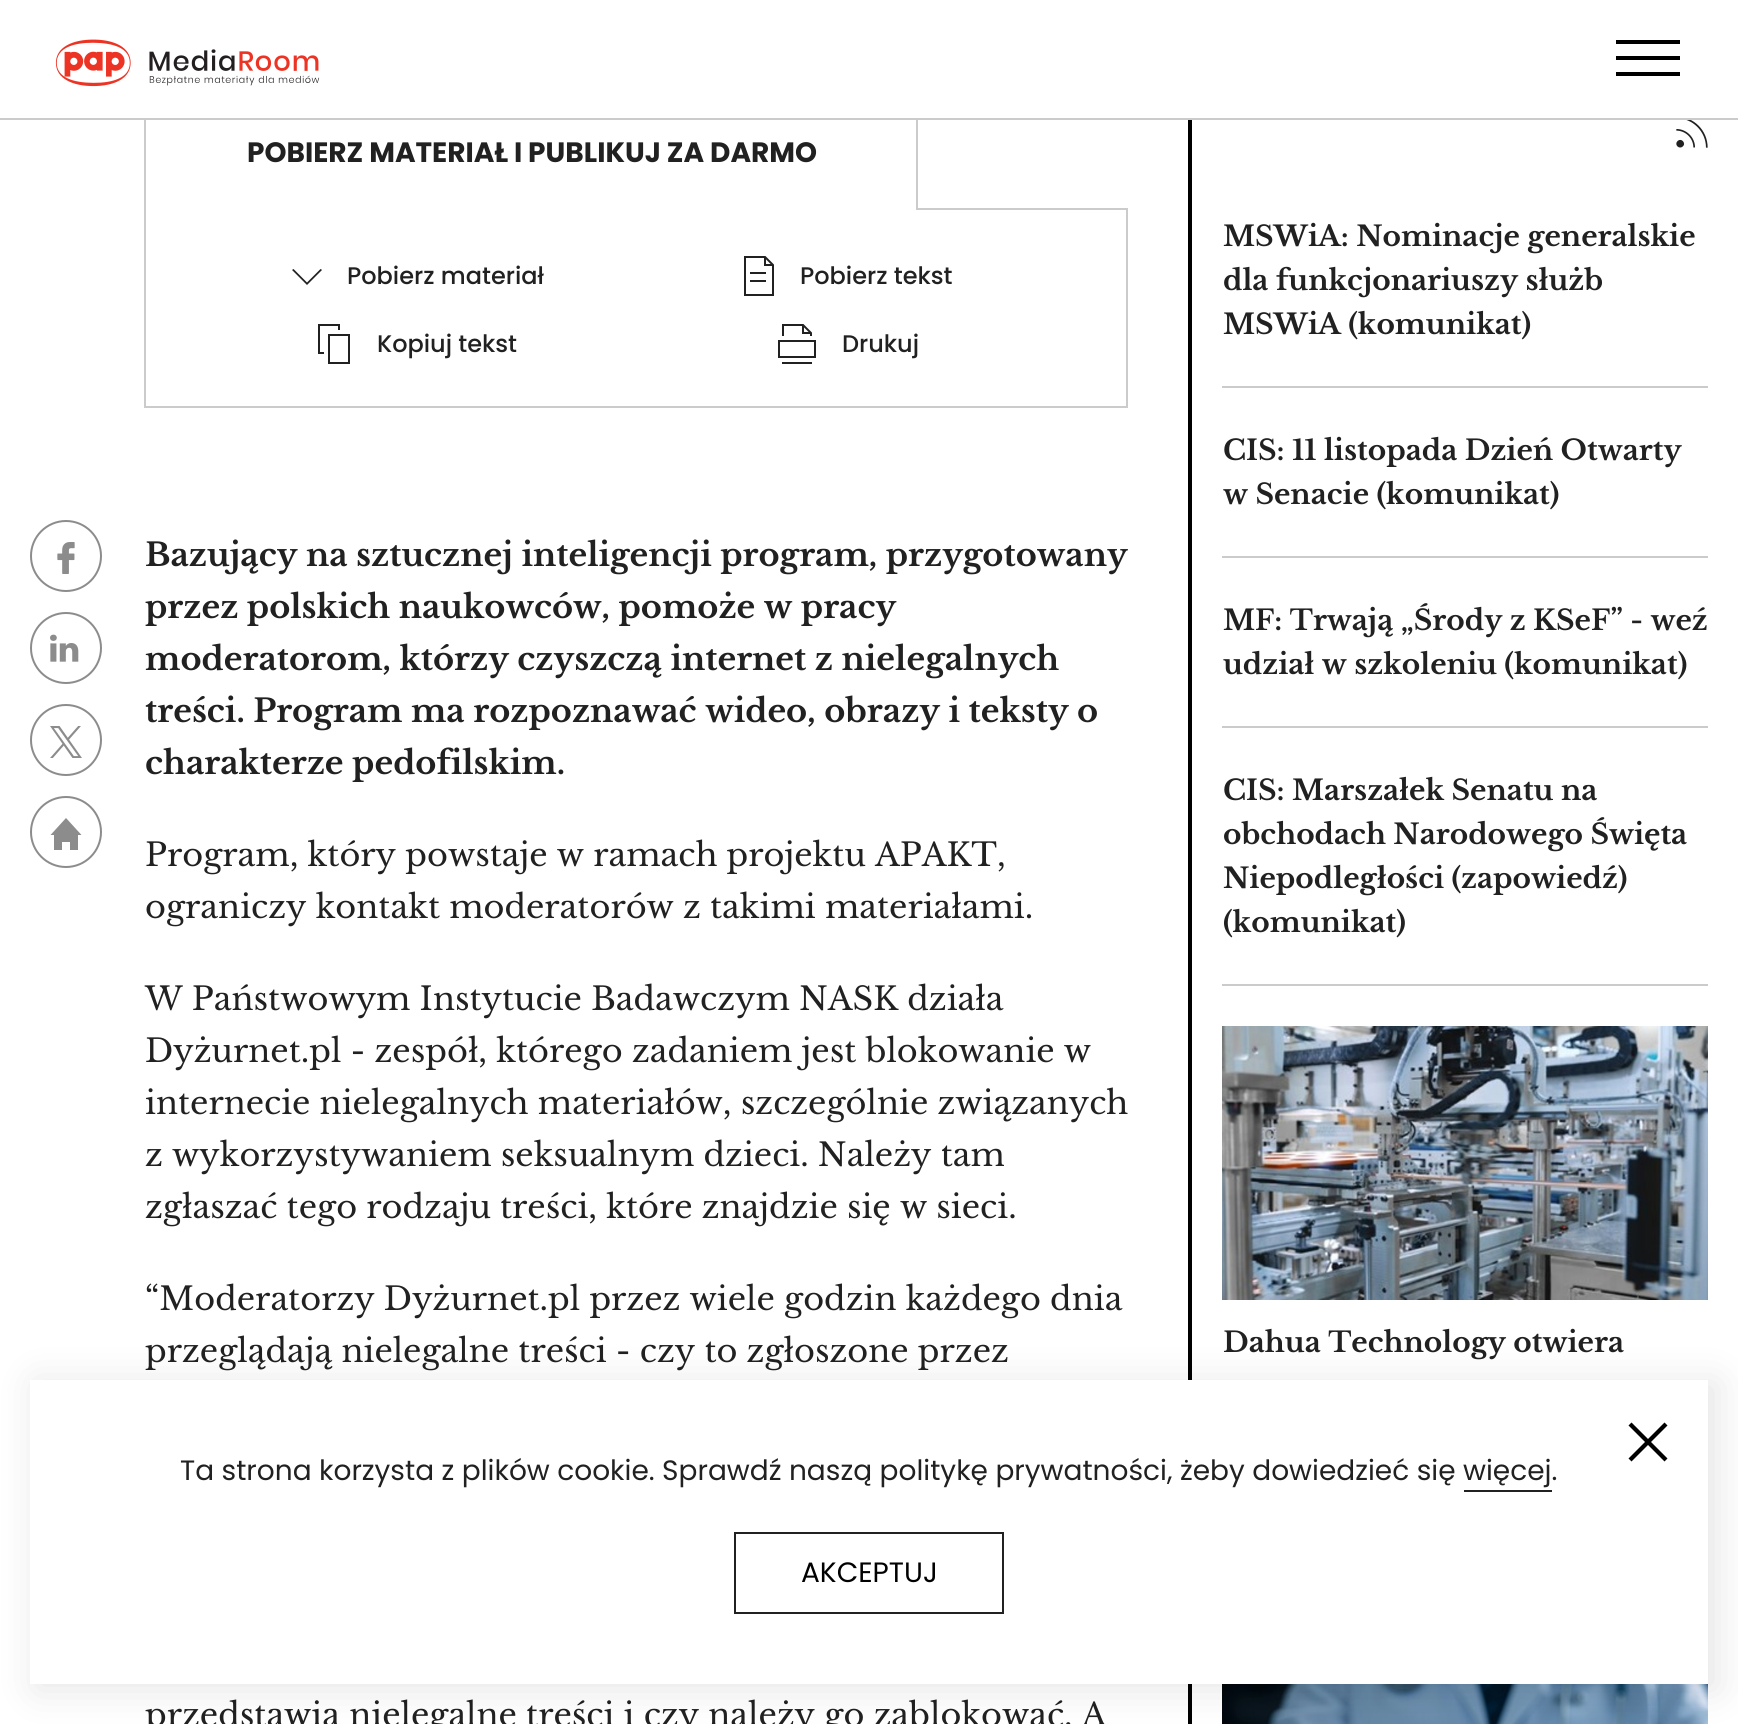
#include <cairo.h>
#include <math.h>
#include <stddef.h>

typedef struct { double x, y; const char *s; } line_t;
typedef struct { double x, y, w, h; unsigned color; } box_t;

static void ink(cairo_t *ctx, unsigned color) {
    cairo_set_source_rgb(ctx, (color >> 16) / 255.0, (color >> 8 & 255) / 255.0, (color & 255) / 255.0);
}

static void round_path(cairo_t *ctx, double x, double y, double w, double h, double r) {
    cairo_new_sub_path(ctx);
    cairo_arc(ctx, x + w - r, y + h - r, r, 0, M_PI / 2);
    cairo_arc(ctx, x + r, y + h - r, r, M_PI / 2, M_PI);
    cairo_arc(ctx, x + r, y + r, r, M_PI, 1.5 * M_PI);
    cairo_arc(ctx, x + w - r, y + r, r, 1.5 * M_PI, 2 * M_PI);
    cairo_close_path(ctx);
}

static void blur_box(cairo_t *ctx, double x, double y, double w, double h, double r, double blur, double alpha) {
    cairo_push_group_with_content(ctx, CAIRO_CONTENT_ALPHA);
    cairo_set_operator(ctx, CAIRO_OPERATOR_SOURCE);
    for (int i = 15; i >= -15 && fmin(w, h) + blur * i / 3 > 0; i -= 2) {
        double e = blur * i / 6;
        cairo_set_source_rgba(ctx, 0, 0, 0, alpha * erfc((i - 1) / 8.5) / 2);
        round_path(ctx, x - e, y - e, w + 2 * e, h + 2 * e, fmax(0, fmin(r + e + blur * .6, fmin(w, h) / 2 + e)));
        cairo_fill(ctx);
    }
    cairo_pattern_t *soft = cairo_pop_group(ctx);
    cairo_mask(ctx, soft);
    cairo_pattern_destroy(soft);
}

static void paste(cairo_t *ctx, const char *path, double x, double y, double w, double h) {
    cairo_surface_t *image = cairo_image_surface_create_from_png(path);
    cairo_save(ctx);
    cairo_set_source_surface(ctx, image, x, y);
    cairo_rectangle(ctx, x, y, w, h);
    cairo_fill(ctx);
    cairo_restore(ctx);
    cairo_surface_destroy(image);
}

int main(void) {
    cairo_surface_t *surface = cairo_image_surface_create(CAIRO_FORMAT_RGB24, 1738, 1724);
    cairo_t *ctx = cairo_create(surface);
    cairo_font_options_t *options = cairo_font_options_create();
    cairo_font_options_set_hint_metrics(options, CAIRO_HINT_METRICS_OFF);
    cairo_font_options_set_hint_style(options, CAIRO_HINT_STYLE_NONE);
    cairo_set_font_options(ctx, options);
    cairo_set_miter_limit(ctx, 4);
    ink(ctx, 0xFFFFFF);
    cairo_paint(ctx);
    ink(ctx, 0xCBCBCB);
    cairo_rectangle(ctx, 0, 118, 1738, 2);
    cairo_fill(ctx);
    paste(ctx, "media/1.png", 55, 39, 265, 48);
    {
        static const box_t items[] = {
            {1616, 56, 64, 4, 0x000000},
            {1616, 40, 64, 4, 0x000000},
            {1616, 72, 64, 4, 0x000000},
        };
        for (size_t i = 0; i < sizeof items / sizeof *items; i++) {
            ink(ctx, items[i].color);
            cairo_rectangle(ctx, items[i].x, items[i].y, items[i].w, items[i].h);
            cairo_fill(ctx);
        }
    }
    cairo_arc(ctx, 66, 556, 35, 0, 2 * M_PI);
    ink(ctx, 0x8C8C8C);
    cairo_stroke(ctx);
    paste(ctx, "media/2.png", 57, 542, 18, 32);
    cairo_arc(ctx, 66, 648, 35, 0, 2 * M_PI);
    cairo_stroke(ctx);
    paste(ctx, "media/3.png", 50, 634, 29, 28);
    cairo_arc(ctx, 66, 740, 35, 0, 2 * M_PI);
    cairo_stroke(ctx);
    paste(ctx, "media/4.png", 50, 726, 32, 32);
    cairo_arc(ctx, 66, 832, 35, 0, 2 * M_PI);
    cairo_stroke(ctx);
    cairo_new_path(ctx);
    cairo_move_to(ctx, 50.5, 835);
    cairo_line_to(ctx, 54, 835);
    cairo_line_to(ctx, 54, 850);
    cairo_line_to(ctx, 62, 850);
    cairo_line_to(ctx, 62, 842);
    cairo_line_to(ctx, 70, 842);
    cairo_line_to(ctx, 70, 850);
    cairo_line_to(ctx, 78, 850);
    cairo_line_to(ctx, 78, 835);
    cairo_line_to(ctx, 81.5, 835);
    cairo_line_to(ctx, 66, 818);
    cairo_close_path(ctx);
    cairo_fill(ctx);
    cairo_rectangle(ctx, 145, 209, 982, 198);
    ink(ctx, 0xCBCBCB);
    cairo_stroke(ctx);
    {
        static const box_t items[] = {
            {146, 208, 770, 2, 0xFFFFFF},
            {916, 120, 2, 90, 0xCBCBCB},
            {144, 120, 2, 90, 0xCBCBCB},
        };
        for (size_t i = 0; i < sizeof items / sizeof *items; i++) {
            ink(ctx, items[i].color);
            cairo_rectangle(ctx, items[i].x, items[i].y, items[i].w, items[i].h);
            cairo_fill(ctx);
        }
    }
    cairo_select_font_face(ctx, "Poppins", CAIRO_FONT_SLANT_NORMAL, CAIRO_FONT_WEIGHT_BOLD);
    cairo_set_font_size(ctx, 28);
    ink(ctx, 0x212121);
    cairo_move_to(ctx, 247, 162);
    cairo_show_text(ctx, "POBIERZ MATERIAŁ I PUBLIKUJ ZA DARMO");
    cairo_new_path(ctx);
    cairo_move_to(ctx, 307, 285);
    cairo_line_to(ctx, 292, 270);
    cairo_line_to(ctx, 293.5, 269);
    cairo_line_to(ctx, 307, 282.5);
    cairo_line_to(ctx, 320.5, 269);
    cairo_line_to(ctx, 322, 270);
    cairo_close_path(ctx);
    cairo_fill(ctx);
    cairo_select_font_face(ctx, "Poppins Medium", CAIRO_FONT_SLANT_NORMAL, CAIRO_FONT_WEIGHT_NORMAL);
    cairo_set_font_size(ctx, 24);
    cairo_move_to(ctx, 347, 284);
    cairo_show_text(ctx, "Pobierz materiał");
    paste(ctx, "media/5.png", 744, 256, 30, 40);
    cairo_move_to(ctx, 800, 284);
    cairo_show_text(ctx, "Pobierz tekst");
    paste(ctx, "media/6.png", 318, 324, 32, 40);
    cairo_move_to(ctx, 377, 352);
    cairo_show_text(ctx, "Kopiuj tekst");
    paste(ctx, "media/7.png", 778, 324, 38, 40);
    cairo_move_to(ctx, 842, 352);
    cairo_show_text(ctx, "Drukuj");
    cairo_select_font_face(ctx, "Libre Baskerville", CAIRO_FONT_SLANT_NORMAL, CAIRO_FONT_WEIGHT_BOLD);
    cairo_set_font_size(ctx, 32);
    {
        static const line_t items[] = {
            {145, 566, "Bazujący na sztucznej inteligencji program, przygotowany"},
            {145, 618, "przez polskich naukowców, pomoże w pracy"},
            {145, 670, "moderatorom, którzy czyszczą internet z nielegalnych"},
            {145, 722, "treści. Program ma rozpoznawać wideo, obrazy i teksty o"},
            {145, 774, "charakterze pedofilskim."},
        };
        for (size_t i = 0; i < sizeof items / sizeof *items; i++) {
            cairo_move_to(ctx, items[i].x, items[i].y);
            cairo_show_text(ctx, items[i].s);
        }
    }
    cairo_select_font_face(ctx, "Libre Baskerville", CAIRO_FONT_SLANT_NORMAL, CAIRO_FONT_WEIGHT_NORMAL);
    {
        static const line_t items[] = {
            {145, 866, "Program, który powstaje w ramach projektu APAKT,"},
            {145, 918, "ograniczy kontakt moderatorów z takimi materiałami."},
            {145, 1010, "W Państwowym Instytucie Badawczym NASK działa"},
            {145, 1062, "Dyżurnet.pl - zespół, którego zadaniem jest blokowanie w"},
            {145, 1114, "internecie nielegalnych materiałów, szczególnie związanych"},
            {145, 1166, "z wykorzystywaniem seksualnym dzieci. Należy tam"},
            {145, 1218, "zgłaszać tego rodzaju treści, które znajdzie się w sieci."},
            {145, 1310, "“Moderatorzy Dyżurnet.pl przez wiele godzin każdego dnia"},
            {145, 1362, "przeglądają nielegalne treści - czy to zgłoszone przez"},
            {145, 1726, "przedstawia nielegalne treści i czy należy go zablokować. A"},
        };
        for (size_t i = 0; i < sizeof items / sizeof *items; i++) {
            cairo_move_to(ctx, items[i].x, items[i].y);
            cairo_show_text(ctx, items[i].s);
        }
    }
    ink(ctx, 0x000000);
    cairo_rectangle(ctx, 1188, 120, 4, 1604);
    cairo_fill(ctx);
    paste(ctx, "media/8.png", 1676, 120, 32, 28);
    ink(ctx, 0xCBCBCB);
    cairo_rectangle(ctx, 1222, 386, 486, 2);
    cairo_fill(ctx);
    cairo_select_font_face(ctx, "Libre Baskerville", CAIRO_FONT_SLANT_NORMAL, CAIRO_FONT_WEIGHT_BOLD);
    cairo_set_font_size(ctx, 28);
    ink(ctx, 0x212121);
    {
        static const line_t items[] = {
            {1223, 246, "MSWiA: Nominacje generalskie"},
            {1223, 290, "dla funkcjonariuszy służb"},
            {1223, 334, "MSWiA (komunikat)"},
        };
        for (size_t i = 0; i < sizeof items / sizeof *items; i++) {
            cairo_move_to(ctx, items[i].x, items[i].y);
            cairo_show_text(ctx, items[i].s);
        }
    }
    ink(ctx, 0xCBCBCB);
    cairo_rectangle(ctx, 1222, 556, 486, 2);
    cairo_fill(ctx);
    ink(ctx, 0x212121);
    cairo_move_to(ctx, 1223, 460);
    cairo_show_text(ctx, "CIS: 11 listopada Dzień Otwarty");
    cairo_move_to(ctx, 1223, 504);
    cairo_show_text(ctx, "w Senacie (komunikat)");
    ink(ctx, 0xCBCBCB);
    cairo_rectangle(ctx, 1222, 726, 486, 2);
    cairo_fill(ctx);
    ink(ctx, 0x212121);
    cairo_move_to(ctx, 1223, 630);
    cairo_show_text(ctx, "MF: Trwają „Środy z KSeF” - weź");
    cairo_move_to(ctx, 1223, 674);
    cairo_show_text(ctx, "udział w szkoleniu (komunikat)");
    ink(ctx, 0xCBCBCB);
    cairo_rectangle(ctx, 1222, 984, 486, 2);
    cairo_fill(ctx);
    ink(ctx, 0x212121);
    {
        static const line_t items[] = {
            {1223, 800, "CIS: Marszałek Senatu na"},
            {1223, 844, "obchodach Narodowego Święta"},
            {1223, 888, "Niepodległości (zapowiedź)"},
            {1223, 932, "(komunikat)"},
        };
        for (size_t i = 0; i < sizeof items / sizeof *items; i++) {
            cairo_move_to(ctx, items[i].x, items[i].y);
            cairo_show_text(ctx, items[i].s);
        }
    }
    paste(ctx, "media/9.png", 1222, 1026, 486, 274);
    cairo_move_to(ctx, 1223, 1352);
    cairo_show_text(ctx, "Dahua Technology otwiera");
    paste(ctx, "media/10.png", 1222, 1684, 486, 40);
    ink(ctx, 0x000000);
    blur_box(ctx, 36, 1382, 1682, 308, 0, 19, 0.1);
    ink(ctx, 0xFFFFFF);
    cairo_rectangle(ctx, 30, 1380, 1678, 304);
    cairo_fill(ctx);
    ink(ctx, 0x000000);
    cairo_new_path(ctx);
    cairo_move_to(ctx, 1667.5, 1425.5);
    cairo_line_to(ctx, 1664.5, 1422.5);
    cairo_line_to(ctx, 1648, 1439);
    cairo_line_to(ctx, 1631.5, 1422.5);
    cairo_line_to(ctx, 1628.5, 1425.5);
    cairo_line_to(ctx, 1645, 1442);
    cairo_line_to(ctx, 1628.5, 1458.5);
    cairo_line_to(ctx, 1631.5, 1461.5);
    cairo_line_to(ctx, 1648, 1445);
    cairo_line_to(ctx, 1664.5, 1461.5);
    cairo_line_to(ctx, 1667.5, 1458.5);
    cairo_line_to(ctx, 1651, 1442);
    cairo_close_path(ctx);
    cairo_fill(ctx);
    cairo_select_font_face(ctx, "Poppins", CAIRO_FONT_SLANT_NORMAL, CAIRO_FONT_WEIGHT_NORMAL);
    ink(ctx, 0x212121);
    cairo_move_to(ctx, 180, 1480);
    cairo_show_text(ctx, "Ta strona korzysta z plików cookie. Sprawdź naszą politykę prywatności, żeby dowiedzieć się więcej.");
    cairo_rectangle(ctx, 1464, 1490, 88, 2);
    cairo_fill(ctx);
    cairo_rectangle(ctx, 735, 1533, 268, 80);
    cairo_stroke(ctx);
    ink(ctx, 0x000000);
    cairo_move_to(ctx, 801, 1582);
    cairo_show_text(ctx, "AKCEPTUJ");
    cairo_surface_write_to_png(surface, "image.png");
    cairo_font_options_destroy(options);
    cairo_destroy(ctx);
    cairo_surface_destroy(surface);
    return 0;
}
